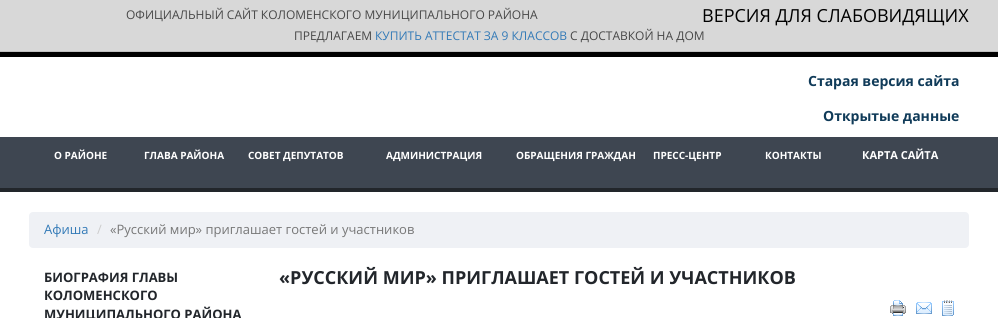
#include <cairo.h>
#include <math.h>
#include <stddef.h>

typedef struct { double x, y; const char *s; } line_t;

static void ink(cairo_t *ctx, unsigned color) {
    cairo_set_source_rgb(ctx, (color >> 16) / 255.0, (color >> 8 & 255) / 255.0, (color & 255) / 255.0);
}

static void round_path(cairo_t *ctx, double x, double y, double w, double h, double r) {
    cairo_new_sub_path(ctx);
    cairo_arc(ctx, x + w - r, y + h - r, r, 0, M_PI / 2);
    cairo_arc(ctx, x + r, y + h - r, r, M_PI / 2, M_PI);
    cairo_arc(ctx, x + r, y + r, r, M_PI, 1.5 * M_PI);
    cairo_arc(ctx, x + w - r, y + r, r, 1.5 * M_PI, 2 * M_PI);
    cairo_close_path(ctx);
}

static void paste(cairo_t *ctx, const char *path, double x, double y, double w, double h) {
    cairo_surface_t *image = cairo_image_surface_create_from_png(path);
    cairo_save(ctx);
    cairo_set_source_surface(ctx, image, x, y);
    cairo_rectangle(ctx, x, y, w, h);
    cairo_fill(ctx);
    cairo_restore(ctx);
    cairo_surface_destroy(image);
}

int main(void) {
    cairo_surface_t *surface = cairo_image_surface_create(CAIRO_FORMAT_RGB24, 998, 318);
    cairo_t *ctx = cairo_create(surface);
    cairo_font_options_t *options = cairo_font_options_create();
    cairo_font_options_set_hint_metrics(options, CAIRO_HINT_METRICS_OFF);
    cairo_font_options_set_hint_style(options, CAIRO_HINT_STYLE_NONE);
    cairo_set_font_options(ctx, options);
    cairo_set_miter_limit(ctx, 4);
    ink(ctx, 0xFFFFFF);
    cairo_paint(ctx);
    ink(ctx, 0xD8D8D8);
    cairo_rectangle(ctx, 0, 0, 998, 51);
    cairo_fill(ctx);
    ink(ctx, 0xBFBFBF);
    cairo_rectangle(ctx, 0, 51, 998, 1);
    cairo_fill(ctx);
    cairo_select_font_face(ctx, "Open Sans", CAIRO_FONT_SLANT_NORMAL, CAIRO_FONT_WEIGHT_NORMAL);
    cairo_set_font_size(ctx, 12);
    ink(ctx, 0x474747);
    cairo_move_to(ctx, 126, 19);
    cairo_show_text(ctx, "ОФИЦИАЛЬНЫЙ САЙТ КОЛОМЕНСКОГО МУНИЦИПАЛЬНОГО РАЙОНА");
    cairo_set_font_size(ctx, 18);
    ink(ctx, 0x000000);
    cairo_move_to(ctx, 702, 22);
    cairo_show_text(ctx, "ВЕРСИЯ ДЛЯ СЛАБОВИДЯЩИХ");
    cairo_set_font_size(ctx, 12);
    ink(ctx, 0x474747);
    cairo_move_to(ctx, 294, 40);
    cairo_show_text(ctx, "ПРЕДЛАГАЕМ");
    ink(ctx, 0x337AB7);
    cairo_move_to(ctx, 375, 40);
    cairo_show_text(ctx, "КУПИТЬ АТТЕСТАТ ЗА 9 КЛАССОВ");
    ink(ctx, 0x474747);
    cairo_move_to(ctx, 570, 40);
    cairo_show_text(ctx, "С ДОСТАВКОЙ НА ДОМ");
    ink(ctx, 0x000000);
    cairo_rectangle(ctx, 0, 52, 998, 5);
    cairo_fill(ctx);
    cairo_select_font_face(ctx, "Open Sans", CAIRO_FONT_SLANT_NORMAL, CAIRO_FONT_WEIGHT_BOLD);
    cairo_set_font_size(ctx, 14);
    ink(ctx, 0x103B59);
    cairo_move_to(ctx, 808, 86);
    cairo_show_text(ctx, "Старая версия сайта");
    cairo_move_to(ctx, 823, 121);
    cairo_show_text(ctx, "Открытые данные");
    ink(ctx, 0x3E4651);
    cairo_rectangle(ctx, 0, 137, 998, 51);
    cairo_fill(ctx);
    ink(ctx, 0x22262B);
    cairo_rectangle(ctx, 0, 188, 998, 4);
    cairo_fill(ctx);
    cairo_set_font_size(ctx, 10);
    ink(ctx, 0xFFFFFF);
    {
        static const line_t items[] = {
            {54, 159, "О РАЙОНЕ"},
            {144, 159, "ГЛАВА РАЙОНА"},
            {248, 159, "СОВЕТ ДЕПУТАТОВ"},
            {386, 159, "АДМИНИСТРАЦИЯ"},
            {516, 159, "ОБРАЩЕНИЯ ГРАЖДАН"},
            {653, 159, "ПРЕСС-ЦЕНТР"},
            {765, 159, "КОНТАКТЫ"},
        };
        for (size_t i = 0; i < sizeof items / sizeof *items; i++) {
            cairo_move_to(ctx, items[i].x, items[i].y);
            cairo_show_text(ctx, items[i].s);
        }
    }
    cairo_set_font_size(ctx, 11);
    cairo_move_to(ctx, 862, 159);
    cairo_show_text(ctx, "КАРТА САЙТА");
    ink(ctx, 0xEFF1F5);
    round_path(ctx, 29, 212, 940, 36, 4);
    cairo_fill(ctx);
    cairo_select_font_face(ctx, "Open Sans", CAIRO_FONT_SLANT_NORMAL, CAIRO_FONT_WEIGHT_NORMAL);
    cairo_set_font_size(ctx, 13);
    ink(ctx, 0x337AB7);
    cairo_move_to(ctx, 44, 234);
    cairo_show_text(ctx, "Афиша");
    ink(ctx, 0xCCCCCC);
    cairo_move_to(ctx, 97, 234);
    cairo_show_text(ctx, "/");
    ink(ctx, 0x777777);
    cairo_move_to(ctx, 110, 234);
    cairo_show_text(ctx, "«Русский мир» приглашает гостей и участников");
    cairo_select_font_face(ctx, "Open Sans", CAIRO_FONT_SLANT_NORMAL, CAIRO_FONT_WEIGHT_BOLD);
    ink(ctx, 0x22262B);
    {
        static const line_t items[] = {
            {44, 282, "БИОГРАФИЯ ГЛАВЫ"},
            {44, 300, "КОЛОМЕНСКОГО"},
            {44, 319, "МУНИЦИПАЛЬНОГО РАЙОНА"},
        };
        for (size_t i = 0; i < sizeof items / sizeof *items; i++) {
            cairo_move_to(ctx, items[i].x, items[i].y);
            cairo_show_text(ctx, items[i].s);
        }
    }
    cairo_set_font_size(ctx, 18);
    cairo_move_to(ctx, 279, 284);
    cairo_show_text(ctx, "«РУССКИЙ МИР» ПРИГЛАШАЕТ ГОСТЕЙ И УЧАСТНИКОВ");
    paste(ctx, "media/1.png", 890, 300, 16, 16);
    paste(ctx, "media/2.png", 916, 302, 16, 12);
    paste(ctx, "media/3.png", 942, 300, 12, 16);
    cairo_surface_write_to_png(surface, "image.png");
    cairo_font_options_destroy(options);
    cairo_destroy(ctx);
    cairo_surface_destroy(surface);
    return 0;
}
